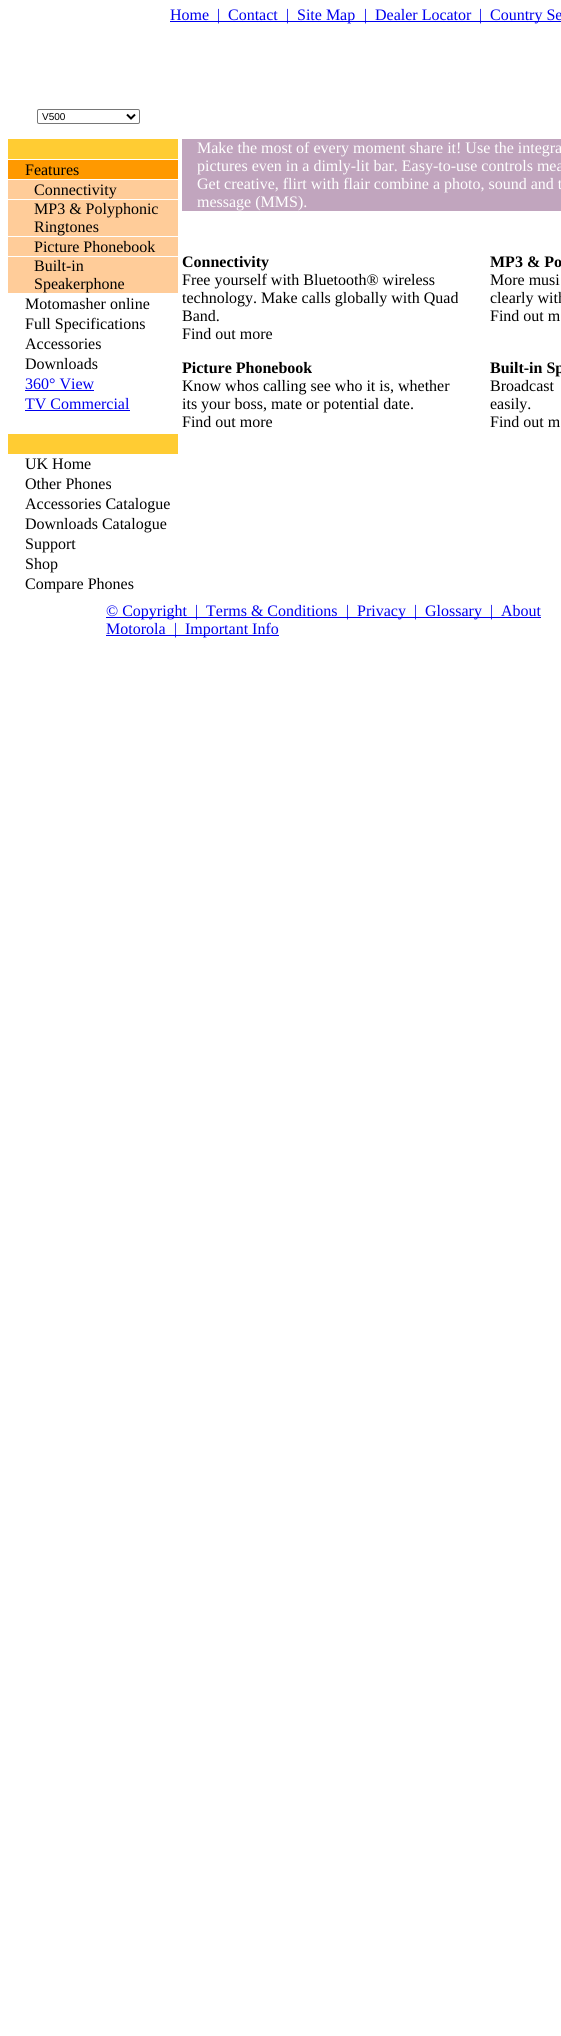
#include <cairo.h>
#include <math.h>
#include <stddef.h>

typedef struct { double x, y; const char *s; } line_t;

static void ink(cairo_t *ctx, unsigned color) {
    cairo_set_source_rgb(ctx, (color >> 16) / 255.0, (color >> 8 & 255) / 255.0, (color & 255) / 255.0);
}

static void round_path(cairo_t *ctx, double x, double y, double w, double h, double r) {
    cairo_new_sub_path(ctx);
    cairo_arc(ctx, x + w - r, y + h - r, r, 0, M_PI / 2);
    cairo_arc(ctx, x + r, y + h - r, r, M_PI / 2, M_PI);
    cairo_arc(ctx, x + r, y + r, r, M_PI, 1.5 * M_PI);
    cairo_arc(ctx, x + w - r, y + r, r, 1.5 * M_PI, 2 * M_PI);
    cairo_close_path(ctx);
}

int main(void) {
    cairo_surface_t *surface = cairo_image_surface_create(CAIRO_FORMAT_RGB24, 561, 2036);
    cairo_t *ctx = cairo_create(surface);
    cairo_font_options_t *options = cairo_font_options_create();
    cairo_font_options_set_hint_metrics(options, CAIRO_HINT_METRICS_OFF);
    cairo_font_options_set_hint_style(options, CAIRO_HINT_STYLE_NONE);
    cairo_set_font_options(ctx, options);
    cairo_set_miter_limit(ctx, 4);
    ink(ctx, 0xFFFFFF);
    cairo_paint(ctx);
    cairo_select_font_face(ctx, "Liberation Serif", CAIRO_FONT_SLANT_NORMAL, CAIRO_FONT_WEIGHT_NORMAL);
    cairo_set_font_size(ctx, 16);
    ink(ctx, 0x0000EE);
    cairo_move_to(ctx, 170, 20);
    cairo_show_text(ctx, "Home");
    cairo_rectangle(ctx, 170, 21, 391, 1);
    cairo_fill(ctx);
    {
        static const line_t items[] = {
            {217, 20, "|"},
            {228, 20, "Contact"},
            {286, 20, "|"},
            {297, 20, "Site Map"},
            {364, 20, "|"},
            {375, 20, "Dealer Locator"},
            {479, 20, "|"},
            {490, 20, "Country Se"},
        };
        for (size_t i = 0; i < sizeof items / sizeof *items; i++) {
            cairo_move_to(ctx, items[i].x, items[i].y);
            cairo_show_text(ctx, items[i].s);
        }
    }
    round_path(ctx, 37.5, 109.5, 102, 14, 1.5);
    ink(ctx, 0x767676);
    cairo_set_line_width(ctx, 1);
    cairo_stroke(ctx);
    cairo_new_path(ctx);
    cairo_move_to(ctx, 127, 114.5);
    cairo_line_to(ctx, 131, 118.5);
    cairo_line_to(ctx, 135, 114.5);
    ink(ctx, 0x000000);
    cairo_set_line_width(ctx, 2);
    cairo_stroke(ctx);
    cairo_select_font_face(ctx, "Liberation Sans", CAIRO_FONT_SLANT_NORMAL, CAIRO_FONT_WEIGHT_NORMAL);
    cairo_set_font_size(ctx, 10);
    cairo_move_to(ctx, 42, 120);
    cairo_show_text(ctx, "V500");
    ink(ctx, 0xFFCC33);
    cairo_rectangle(ctx, 8, 139, 170, 20);
    cairo_fill(ctx);
    ink(ctx, 0xFF9900);
    cairo_rectangle(ctx, 8, 160, 170, 19);
    cairo_fill(ctx);
    cairo_select_font_face(ctx, "Liberation Serif", CAIRO_FONT_SLANT_NORMAL, CAIRO_FONT_WEIGHT_NORMAL);
    cairo_set_font_size(ctx, 16);
    ink(ctx, 0x000000);
    cairo_move_to(ctx, 25, 175);
    cairo_show_text(ctx, "Features");
    ink(ctx, 0xFFCC99);
    cairo_rectangle(ctx, 8, 180, 170, 19);
    cairo_fill(ctx);
    ink(ctx, 0x000000);
    cairo_move_to(ctx, 34, 195);
    cairo_show_text(ctx, "Connectivity");
    ink(ctx, 0xFFCC99);
    cairo_rectangle(ctx, 8, 200, 170, 36);
    cairo_fill(ctx);
    ink(ctx, 0x000000);
    cairo_move_to(ctx, 34, 214);
    cairo_show_text(ctx, "MP3 & Polyphonic");
    cairo_move_to(ctx, 34, 232);
    cairo_show_text(ctx, "Ringtones");
    ink(ctx, 0xFFCC99);
    cairo_rectangle(ctx, 8, 237, 170, 19);
    cairo_fill(ctx);
    ink(ctx, 0x000000);
    cairo_move_to(ctx, 34, 252);
    cairo_show_text(ctx, "Picture Phonebook");
    ink(ctx, 0xFFCC99);
    cairo_rectangle(ctx, 8, 257, 170, 36);
    cairo_fill(ctx);
    ink(ctx, 0x000000);
    {
        static const line_t items[] = {
            {34, 271, "Built-in"},
            {34, 289, "Speakerphone"},
            {25, 309, "Motomasher online"},
            {25, 329, "Full Specifications"},
            {25, 349, "Accessories"},
            {25, 369, "Downloads"},
        };
        for (size_t i = 0; i < sizeof items / sizeof *items; i++) {
            cairo_move_to(ctx, items[i].x, items[i].y);
            cairo_show_text(ctx, items[i].s);
        }
    }
    ink(ctx, 0x0000EE);
    cairo_move_to(ctx, 25, 389);
    cairo_show_text(ctx, "360° View");
    cairo_rectangle(ctx, 25, 390, 69, 1);
    cairo_fill(ctx);
    cairo_move_to(ctx, 25, 409);
    cairo_show_text(ctx, "TV Commercial");
    cairo_rectangle(ctx, 25, 410, 105, 1);
    cairo_fill(ctx);
    ink(ctx, 0xFFCC33);
    cairo_rectangle(ctx, 8, 434, 170, 20);
    cairo_fill(ctx);
    ink(ctx, 0x000000);
    {
        static const line_t items[] = {
            {25, 469, "UK Home"},
            {25, 489, "Other Phones"},
            {25, 509, "Accessories Catalogue"},
            {25, 529, "Downloads Catalogue"},
            {25, 549, "Support"},
            {25, 569, "Shop"},
            {25, 589, "Compare Phones"},
        };
        for (size_t i = 0; i < sizeof items / sizeof *items; i++) {
            cairo_move_to(ctx, items[i].x, items[i].y);
            cairo_show_text(ctx, items[i].s);
        }
    }
    ink(ctx, 0xC1A5BE);
    cairo_rectangle(ctx, 182, 139, 379, 72);
    cairo_fill(ctx);
    ink(ctx, 0xFFFFFF);
    {
        static const line_t items[] = {
            {197, 153, "Make the most of every moment share it! Use the integra"},
            {197, 171, "pictures even in a dimly-lit bar. Easy-to-use controls mea"},
            {197, 189, "Get creative, flirt with flair combine a photo, sound and t"},
            {197, 207, "message (MMS)."},
        };
        for (size_t i = 0; i < sizeof items / sizeof *items; i++) {
            cairo_move_to(ctx, items[i].x, items[i].y);
            cairo_show_text(ctx, items[i].s);
        }
    }
    cairo_select_font_face(ctx, "Liberation Serif", CAIRO_FONT_SLANT_NORMAL, CAIRO_FONT_WEIGHT_BOLD);
    ink(ctx, 0x000000);
    cairo_move_to(ctx, 182, 267);
    cairo_show_text(ctx, "Connectivity");
    cairo_select_font_face(ctx, "Liberation Serif", CAIRO_FONT_SLANT_NORMAL, CAIRO_FONT_WEIGHT_NORMAL);
    {
        static const line_t items[] = {
            {182, 285, "Free yourself with Bluetooth® wireless"},
            {182, 303, "technology. Make calls globally with Quad"},
            {182, 321, "Band."},
            {182, 339, "Find out more"},
        };
        for (size_t i = 0; i < sizeof items / sizeof *items; i++) {
            cairo_move_to(ctx, items[i].x, items[i].y);
            cairo_show_text(ctx, items[i].s);
        }
    }
    cairo_select_font_face(ctx, "Liberation Serif", CAIRO_FONT_SLANT_NORMAL, CAIRO_FONT_WEIGHT_BOLD);
    cairo_move_to(ctx, 490, 267);
    cairo_show_text(ctx, "MP3 & Po");
    cairo_select_font_face(ctx, "Liberation Serif", CAIRO_FONT_SLANT_NORMAL, CAIRO_FONT_WEIGHT_NORMAL);
    {
        static const line_t items[] = {
            {490, 285, "More musi"},
            {490, 303, "clearly with"},
            {490, 321, "Find out m"},
        };
        for (size_t i = 0; i < sizeof items / sizeof *items; i++) {
            cairo_move_to(ctx, items[i].x, items[i].y);
            cairo_show_text(ctx, items[i].s);
        }
    }
    cairo_select_font_face(ctx, "Liberation Serif", CAIRO_FONT_SLANT_NORMAL, CAIRO_FONT_WEIGHT_BOLD);
    cairo_move_to(ctx, 182, 373);
    cairo_show_text(ctx, "Picture Phonebook");
    cairo_select_font_face(ctx, "Liberation Serif", CAIRO_FONT_SLANT_NORMAL, CAIRO_FONT_WEIGHT_NORMAL);
    {
        static const line_t items[] = {
            {182, 391, "Know whos calling see who it is, whether"},
            {182, 409, "its your boss, mate or potential date."},
            {182, 427, "Find out more"},
        };
        for (size_t i = 0; i < sizeof items / sizeof *items; i++) {
            cairo_move_to(ctx, items[i].x, items[i].y);
            cairo_show_text(ctx, items[i].s);
        }
    }
    cairo_select_font_face(ctx, "Liberation Serif", CAIRO_FONT_SLANT_NORMAL, CAIRO_FONT_WEIGHT_BOLD);
    cairo_move_to(ctx, 490, 373);
    cairo_show_text(ctx, "Built-in Sp");
    cairo_select_font_face(ctx, "Liberation Serif", CAIRO_FONT_SLANT_NORMAL, CAIRO_FONT_WEIGHT_NORMAL);
    {
        static const line_t items[] = {
            {490, 391, "Broadcast"},
            {490, 409, "easily."},
            {490, 427, "Find out m"},
        };
        for (size_t i = 0; i < sizeof items / sizeof *items; i++) {
            cairo_move_to(ctx, items[i].x, items[i].y);
            cairo_show_text(ctx, items[i].s);
        }
    }
    ink(ctx, 0x0000EE);
    cairo_rectangle(ctx, 106, 617, 435, 1);
    cairo_fill(ctx);
    {
        static const line_t items[] = {
            {106, 616, "© Copyright"},
            {195, 616, "|"},
            {206, 616, "Terms & Conditions"},
            {346, 616, "|"},
            {357, 616, "Privacy"},
            {414, 616, "|"},
            {425, 616, "Glossary"},
            {490, 616, "|"},
            {501, 616, "About"},
            {106, 634, "Motorola"},
        };
        for (size_t i = 0; i < sizeof items / sizeof *items; i++) {
            cairo_move_to(ctx, items[i].x, items[i].y);
            cairo_show_text(ctx, items[i].s);
        }
    }
    cairo_rectangle(ctx, 106, 635, 173, 1);
    cairo_fill(ctx);
    cairo_move_to(ctx, 174, 634);
    cairo_show_text(ctx, "|");
    cairo_move_to(ctx, 185, 634);
    cairo_show_text(ctx, "Important Info");
    cairo_surface_write_to_png(surface, "image.png");
    cairo_font_options_destroy(options);
    cairo_destroy(ctx);
    cairo_surface_destroy(surface);
    return 0;
}
